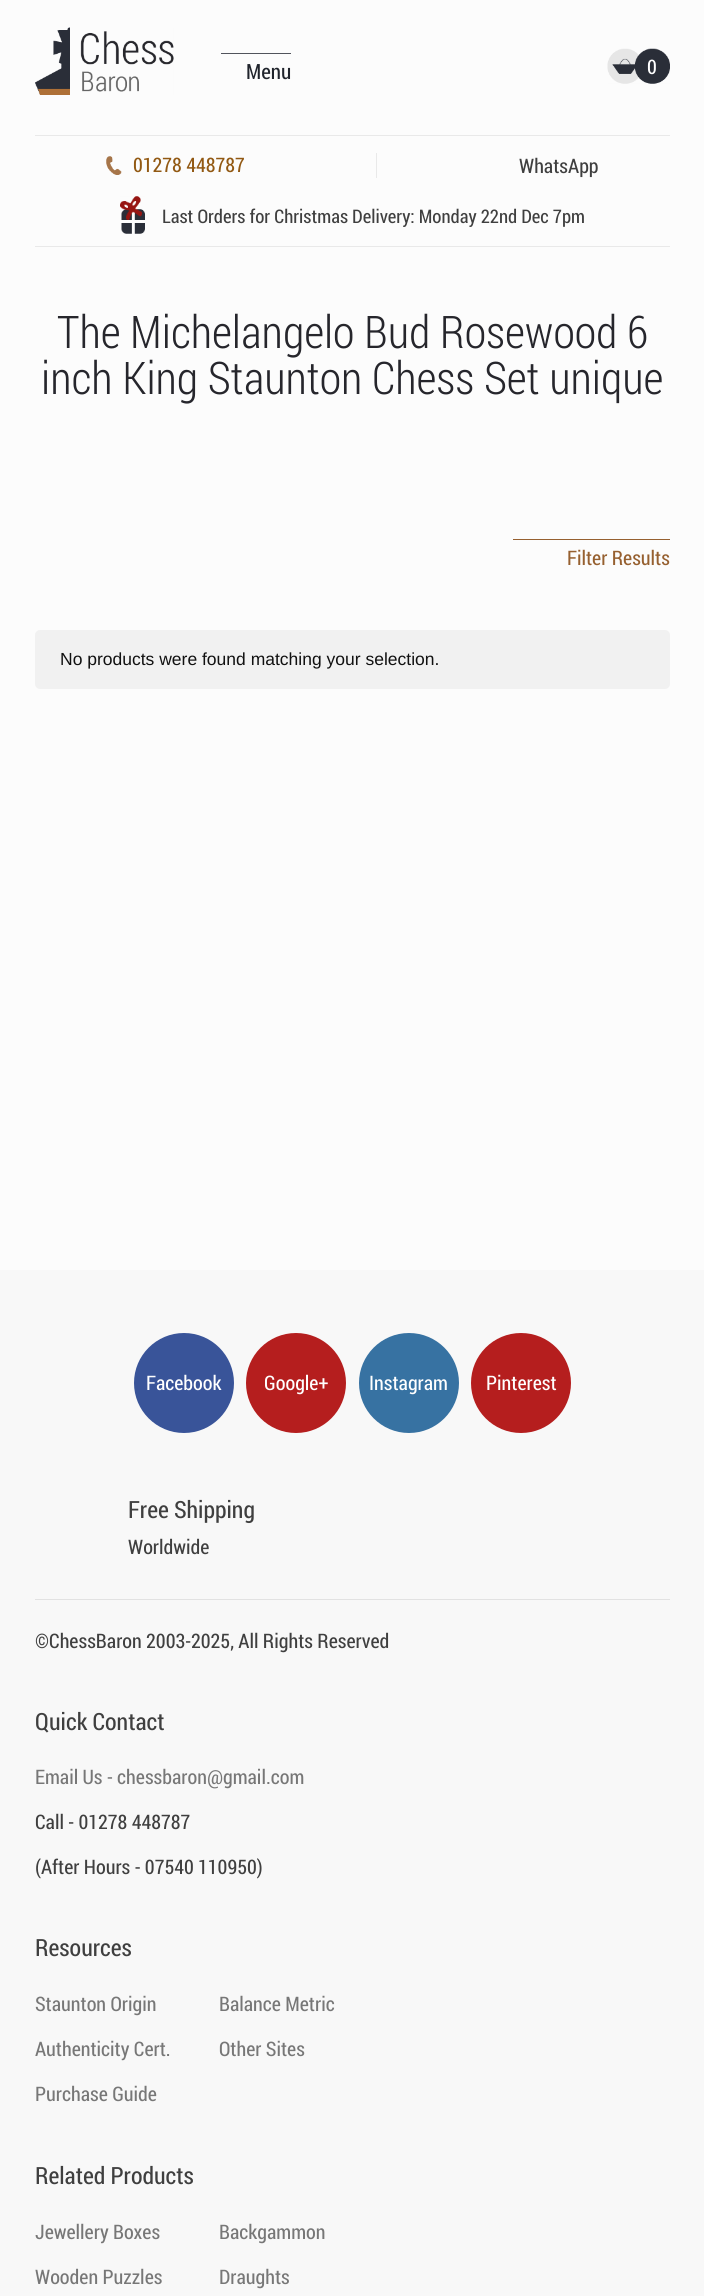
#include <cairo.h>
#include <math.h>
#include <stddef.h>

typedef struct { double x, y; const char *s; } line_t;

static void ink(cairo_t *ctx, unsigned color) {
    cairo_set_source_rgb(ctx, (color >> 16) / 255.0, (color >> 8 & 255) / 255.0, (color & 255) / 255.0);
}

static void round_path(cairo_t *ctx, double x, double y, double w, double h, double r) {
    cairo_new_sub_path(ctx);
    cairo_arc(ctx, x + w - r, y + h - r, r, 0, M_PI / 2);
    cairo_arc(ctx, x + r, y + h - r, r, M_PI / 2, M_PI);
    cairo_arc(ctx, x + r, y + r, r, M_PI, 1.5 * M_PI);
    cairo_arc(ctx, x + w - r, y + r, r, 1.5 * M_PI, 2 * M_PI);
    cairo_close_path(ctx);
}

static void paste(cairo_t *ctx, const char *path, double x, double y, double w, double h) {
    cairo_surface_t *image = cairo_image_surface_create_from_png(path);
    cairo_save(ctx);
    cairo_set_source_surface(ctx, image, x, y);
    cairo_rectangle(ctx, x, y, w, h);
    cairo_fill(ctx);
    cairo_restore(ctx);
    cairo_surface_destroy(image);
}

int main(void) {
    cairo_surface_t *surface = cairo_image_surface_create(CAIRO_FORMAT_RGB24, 704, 2296);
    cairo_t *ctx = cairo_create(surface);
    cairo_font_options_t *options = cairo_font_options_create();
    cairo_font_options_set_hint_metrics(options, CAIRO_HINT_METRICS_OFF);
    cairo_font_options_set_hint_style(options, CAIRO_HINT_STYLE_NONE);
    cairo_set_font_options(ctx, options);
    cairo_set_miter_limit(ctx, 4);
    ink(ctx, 0xFCFCFC);
    cairo_paint(ctx);
    paste(ctx, "media/1.png", 35, 27, 139, 68);
    ink(ctx, 0x51545C);
    cairo_rectangle(ctx, 221, 53, 70, 1);
    cairo_fill(ctx);
    cairo_select_font_face(ctx, "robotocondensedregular", CAIRO_FONT_SLANT_NORMAL, CAIRO_FONT_WEIGHT_NORMAL);
    cairo_set_font_size(ctx, 21);
    ink(ctx, 0x20242C);
    cairo_move_to(ctx, 246, 79);
    cairo_show_text(ctx, "Menu");
    paste(ctx, "media/2.png", 607, 48, 63, 36);
    cairo_set_font_size(ctx, 20);
    ink(ctx, 0xFFFFFF);
    cairo_move_to(ctx, 647, 74);
    cairo_show_text(ctx, "0");
    ink(ctx, 0xE9E9E9);
    cairo_rectangle(ctx, 35, 135, 635, 1);
    cairo_fill(ctx);
    cairo_rectangle(ctx, 35, 246, 635, 1);
    cairo_fill(ctx);
    paste(ctx, "media/3.png", 106, 156, 16, 19);
    ink(ctx, 0x925913);
    cairo_move_to(ctx, 133, 172);
    cairo_show_text(ctx, "01278 448787");
    ink(ctx, 0xE9E9E9);
    cairo_rectangle(ctx, 376, 153, 1, 25);
    cairo_fill(ctx);
    ink(ctx, 0x3F3F3F);
    cairo_move_to(ctx, 519, 173);
    cairo_show_text(ctx, "WhatsApp");
    paste(ctx, "media/4.png", 120, 196, 25, 38);
    cairo_set_font_size(ctx, 18.75);
    cairo_move_to(ctx, 162, 223);
    cairo_show_text(ctx, "Last Orders for Christmas Delivery: Monday 22nd Dec 7pm");
    cairo_select_font_face(ctx, "Roboto Condensed Light", CAIRO_FONT_SLANT_NORMAL, CAIRO_FONT_WEIGHT_NORMAL);
    cairo_set_font_size(ctx, 45);
    ink(ctx, 0x26262C);
    cairo_move_to(ctx, 57, 348);
    cairo_show_text(ctx, "The Michelangelo Bud Rosewood 6");
    cairo_move_to(ctx, 41, 394);
    cairo_show_text(ctx, "inch King Staunton Chess Set unique");
    ink(ctx, 0x966030);
    cairo_rectangle(ctx, 513, 539, 157, 1);
    cairo_fill(ctx);
    cairo_select_font_face(ctx, "robotocondensedregular", CAIRO_FONT_SLANT_NORMAL, CAIRO_FONT_WEIGHT_NORMAL);
    cairo_set_font_size(ctx, 20);
    cairo_move_to(ctx, 567, 565);
    cairo_show_text(ctx, "Filter Results");
    ink(ctx, 0xF1F1F1);
    round_path(ctx, 35, 630, 635, 59, 5);
    cairo_fill(ctx);
    cairo_select_font_face(ctx, "Liberation Sans", CAIRO_FONT_SLANT_NORMAL, CAIRO_FONT_WEIGHT_NORMAL);
    cairo_set_font_size(ctx, 17.5);
    ink(ctx, 0x111111);
    cairo_move_to(ctx, 60, 665);
    cairo_show_text(ctx, "No products were found matching your selection.");
    ink(ctx, 0xF8F8F8);
    cairo_rectangle(ctx, 0, 1270, 704, 1026);
    cairo_fill(ctx);
    ink(ctx, 0x395499);
    cairo_arc(ctx, 184, 1383, 50, 0, 2 * M_PI);
    cairo_fill(ctx);
    cairo_select_font_face(ctx, "robotocondensedregular", CAIRO_FONT_SLANT_NORMAL, CAIRO_FONT_WEIGHT_NORMAL);
    cairo_set_font_size(ctx, 20);
    ink(ctx, 0xFFFFFF);
    cairo_move_to(ctx, 146, 1390);
    cairo_show_text(ctx, "Facebook");
    ink(ctx, 0xB51E1E);
    cairo_new_path(ctx);
    cairo_arc(ctx, 296, 1383, 50, 0, 2 * M_PI);
    cairo_fill(ctx);
    ink(ctx, 0xFFFFFF);
    cairo_move_to(ctx, 264, 1390);
    cairo_show_text(ctx, "Google+");
    ink(ctx, 0x3772A2);
    cairo_new_path(ctx);
    cairo_arc(ctx, 409, 1383, 50, 0, 2 * M_PI);
    cairo_fill(ctx);
    ink(ctx, 0xFFFFFF);
    cairo_move_to(ctx, 369, 1390);
    cairo_show_text(ctx, "Instagram");
    ink(ctx, 0xB51E1E);
    cairo_new_path(ctx);
    cairo_arc(ctx, 521, 1383, 50, 0, 2 * M_PI);
    cairo_fill(ctx);
    ink(ctx, 0xFFFFFF);
    cairo_move_to(ctx, 486, 1390);
    cairo_show_text(ctx, "Pinterest");
    cairo_set_font_size(ctx, 23.75);
    ink(ctx, 0x3F3F3F);
    cairo_move_to(ctx, 128, 1518);
    cairo_show_text(ctx, "Free Shipping");
    cairo_set_font_size(ctx, 20);
    cairo_move_to(ctx, 128, 1554);
    cairo_show_text(ctx, "Worldwide");
    ink(ctx, 0xE2E2E2);
    cairo_rectangle(ctx, 35, 1599, 635, 1);
    cairo_fill(ctx);
    ink(ctx, 0x3F3F3F);
    cairo_move_to(ctx, 35, 1648);
    cairo_show_text(ctx, "©ChessBaron 2003-2025, All Rights Reserved");
    cairo_set_font_size(ctx, 23.75);
    cairo_move_to(ctx, 35, 1730);
    cairo_show_text(ctx, "Quick Contact");
    cairo_set_font_size(ctx, 20);
    ink(ctx, 0x777777);
    cairo_move_to(ctx, 35, 1784);
    cairo_show_text(ctx, "Email Us - chessbaron@gmail.com");
    ink(ctx, 0x3F3F3F);
    cairo_move_to(ctx, 35, 1829);
    cairo_show_text(ctx, "Call - 01278 448787");
    cairo_move_to(ctx, 35, 1874);
    cairo_show_text(ctx, "(After Hours - 07540 110950)");
    cairo_set_font_size(ctx, 23.75);
    cairo_move_to(ctx, 35, 1956);
    cairo_show_text(ctx, "Resources");
    cairo_set_font_size(ctx, 20);
    ink(ctx, 0x777777);
    {
        static const line_t items[] = {
            {35, 2011, "Staunton Origin"},
            {35, 2056, "Authenticity Cert."},
            {35, 2101, "Purchase Guide"},
            {219, 2011, "Balance Metric"},
            {219, 2056, "Other Sites"},
        };
        for (size_t i = 0; i < sizeof items / sizeof *items; i++) {
            cairo_move_to(ctx, items[i].x, items[i].y);
            cairo_show_text(ctx, items[i].s);
        }
    }
    cairo_set_font_size(ctx, 23.75);
    ink(ctx, 0x3F3F3F);
    cairo_move_to(ctx, 35, 2184);
    cairo_show_text(ctx, "Related Products");
    cairo_set_font_size(ctx, 20);
    ink(ctx, 0x777777);
    {
        static const line_t items[] = {
            {35, 2239, "Jewellery Boxes"},
            {35, 2284, "Wooden Puzzles"},
            {219, 2239, "Backgammon"},
            {219, 2284, "Draughts"},
        };
        for (size_t i = 0; i < sizeof items / sizeof *items; i++) {
            cairo_move_to(ctx, items[i].x, items[i].y);
            cairo_show_text(ctx, items[i].s);
        }
    }
    cairo_surface_write_to_png(surface, "image.png");
    cairo_font_options_destroy(options);
    cairo_destroy(ctx);
    cairo_surface_destroy(surface);
    return 0;
}
